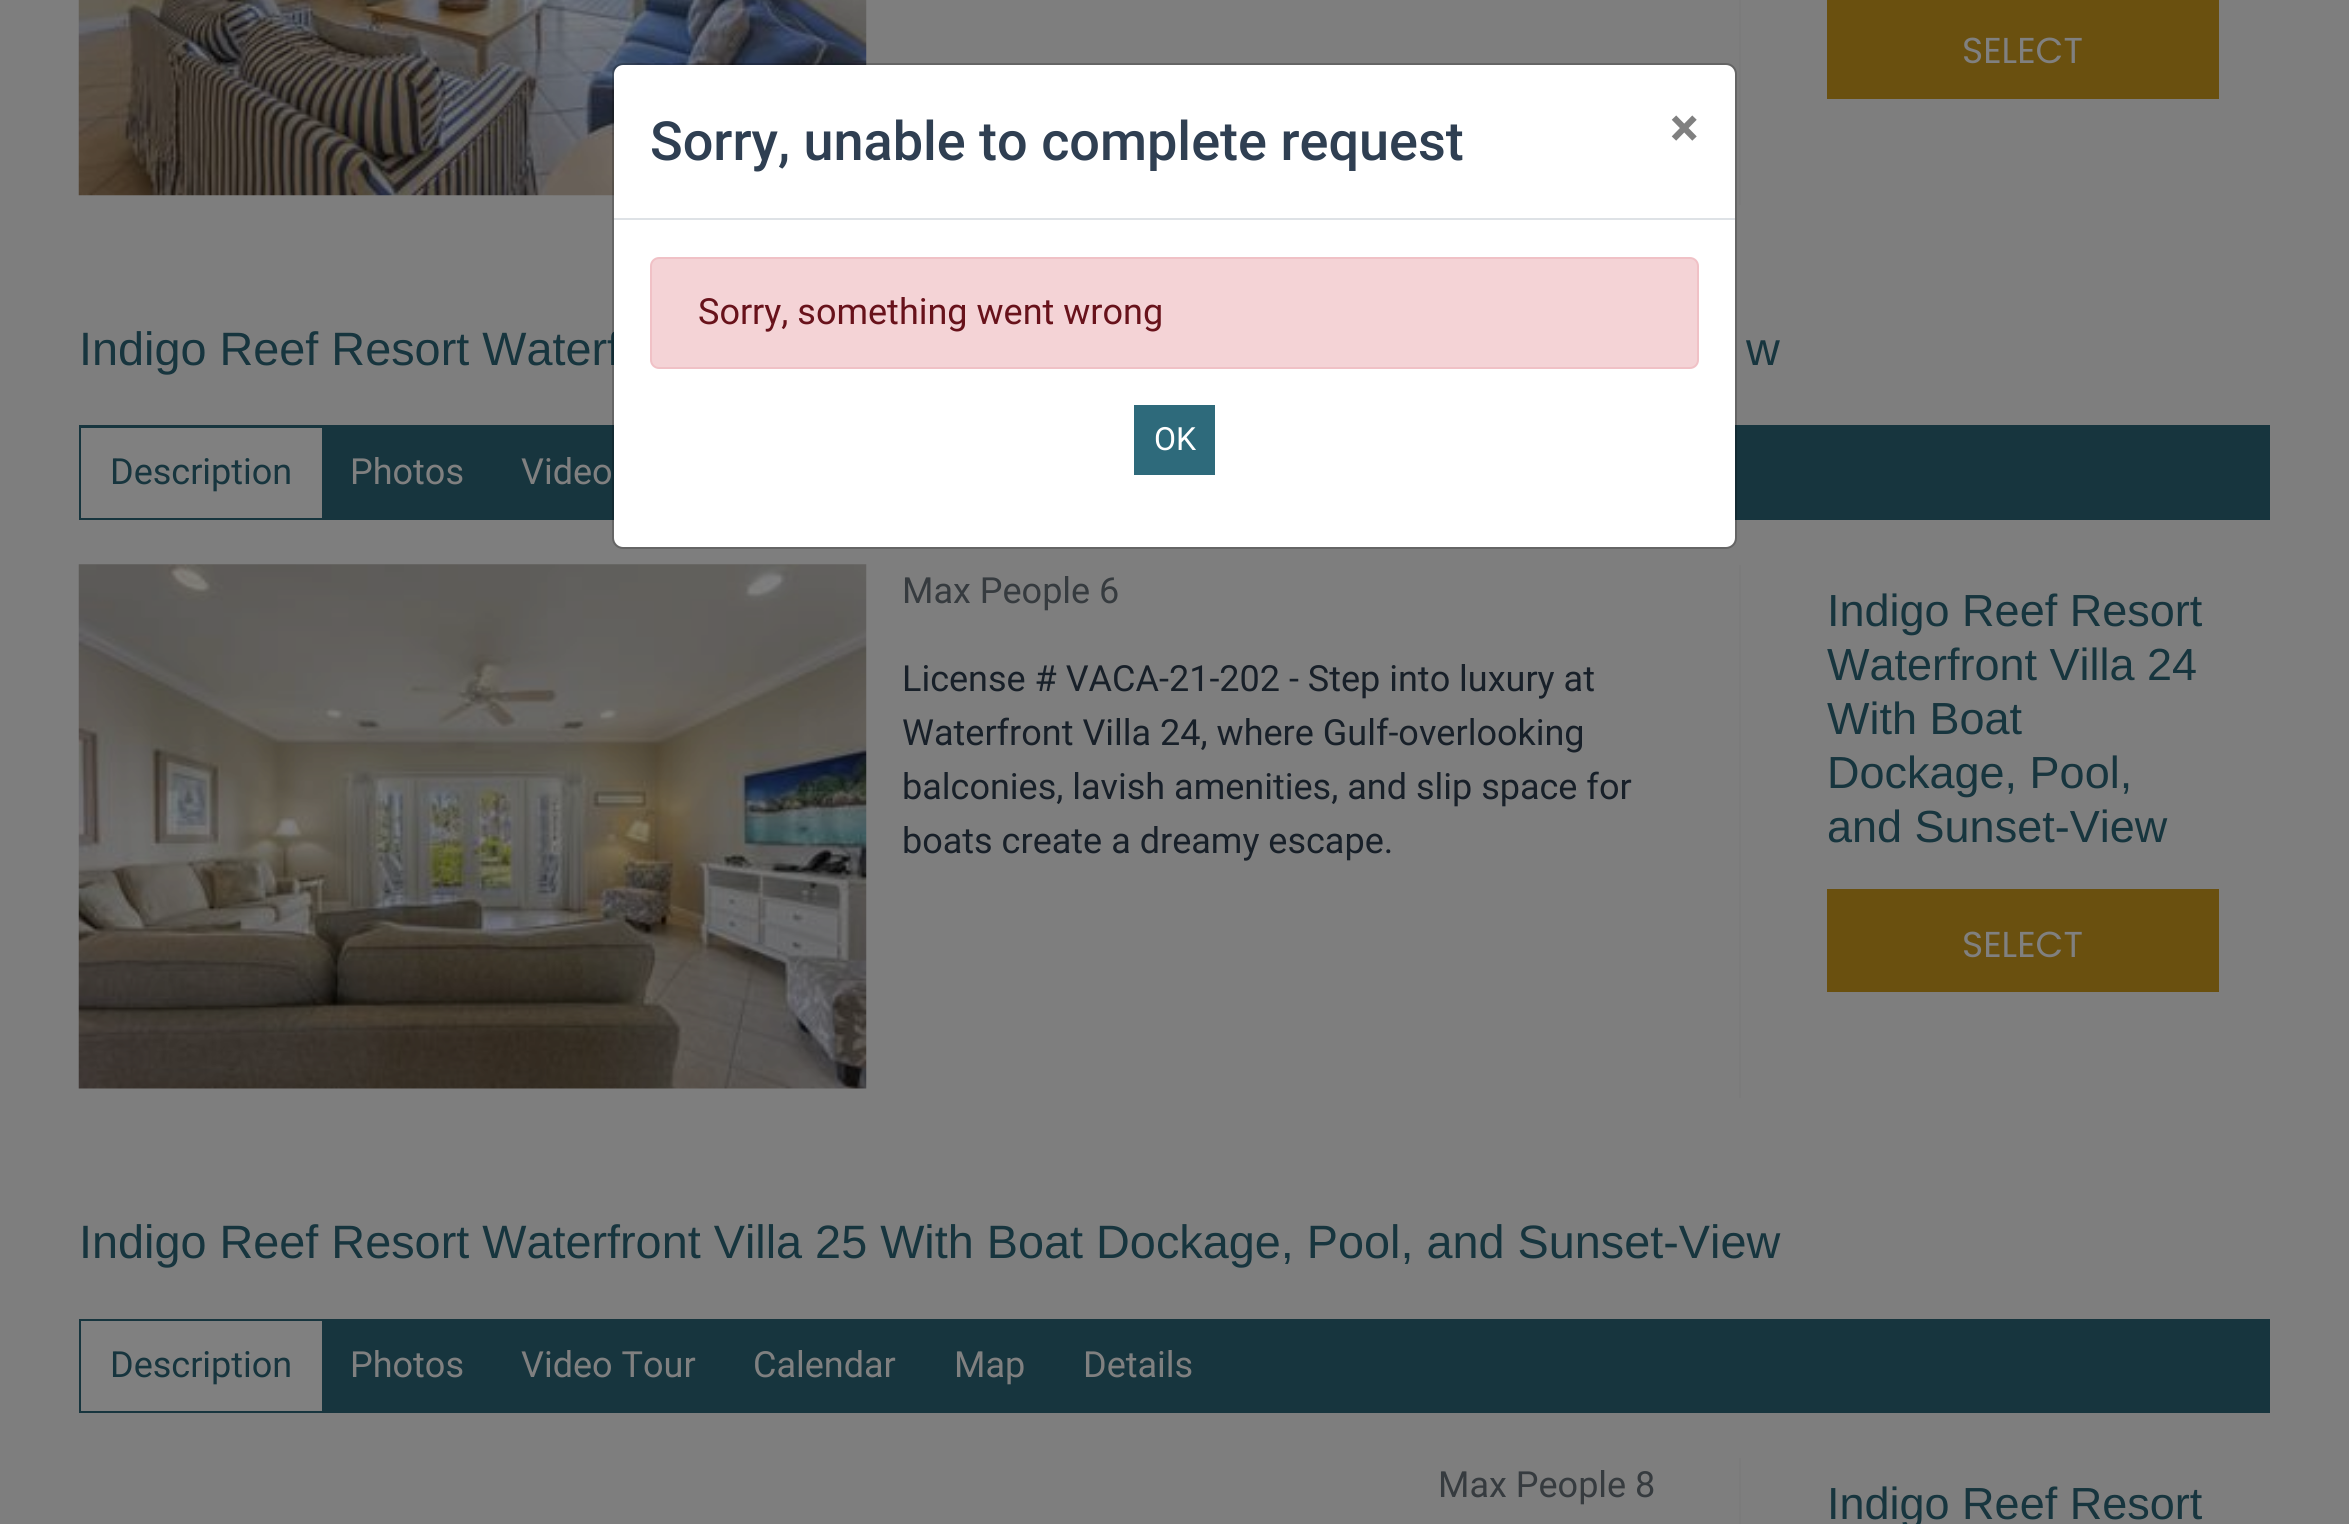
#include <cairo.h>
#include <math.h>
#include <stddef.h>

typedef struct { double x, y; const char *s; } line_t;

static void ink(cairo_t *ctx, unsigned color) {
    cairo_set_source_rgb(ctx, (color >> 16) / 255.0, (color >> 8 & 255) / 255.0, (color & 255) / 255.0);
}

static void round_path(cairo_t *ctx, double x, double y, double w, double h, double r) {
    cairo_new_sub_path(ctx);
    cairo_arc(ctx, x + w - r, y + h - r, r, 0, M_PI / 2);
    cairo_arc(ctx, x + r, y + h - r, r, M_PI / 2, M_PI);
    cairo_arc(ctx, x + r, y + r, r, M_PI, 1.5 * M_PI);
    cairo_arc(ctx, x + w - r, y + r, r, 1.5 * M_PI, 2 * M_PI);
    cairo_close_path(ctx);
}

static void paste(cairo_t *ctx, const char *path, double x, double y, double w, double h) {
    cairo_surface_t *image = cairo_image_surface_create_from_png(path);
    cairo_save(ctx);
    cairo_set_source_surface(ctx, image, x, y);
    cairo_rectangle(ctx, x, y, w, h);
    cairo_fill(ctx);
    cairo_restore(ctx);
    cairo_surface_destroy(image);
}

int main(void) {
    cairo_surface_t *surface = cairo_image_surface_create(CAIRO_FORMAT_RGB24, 2349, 1524);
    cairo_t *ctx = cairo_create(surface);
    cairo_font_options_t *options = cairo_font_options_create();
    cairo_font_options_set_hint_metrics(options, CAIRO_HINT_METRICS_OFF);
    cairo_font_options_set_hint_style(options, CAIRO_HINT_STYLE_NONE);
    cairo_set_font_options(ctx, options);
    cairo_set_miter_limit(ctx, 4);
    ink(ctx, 0x7E7E7E);
    cairo_paint(ctx);
    paste(ctx, "media/1.png", 78, 0, 789, 196);
    ink(ctx, 0x7B7B7B);
    cairo_rectangle(ctx, 1739, 0, 2, 205);
    cairo_fill(ctx);
    ink(ctx, 0x6A500F);
    cairo_rectangle(ctx, 1827, 0, 392, 99);
    cairo_fill(ctx);
    cairo_select_font_face(ctx, "Poppins", CAIRO_FONT_SLANT_NORMAL, CAIRO_FONT_WEIGHT_NORMAL);
    cairo_set_font_size(ctx, 36);
    ink(ctx, 0x808080);
    cairo_move_to(ctx, 1962, 63);
    cairo_show_text(ctx, "SELECT");
    cairo_select_font_face(ctx, "Liberation Sans", CAIRO_FONT_SLANT_NORMAL, CAIRO_FONT_WEIGHT_NORMAL);
    cairo_set_font_size(ctx, 46.8);
    ink(ctx, 0x17353E);
    cairo_move_to(ctx, 79, 365);
    cairo_show_text(ctx, "Indigo Reef Resort Waterf");
    cairo_move_to(ctx, 1746, 365);
    cairo_show_text(ctx, "w");
    cairo_rectangle(ctx, 79, 425, 2191, 95);
    cairo_fill(ctx);
    ink(ctx, 0x808080);
    cairo_rectangle(ctx, 81, 428, 241, 90);
    cairo_fill(ctx);
    cairo_select_font_face(ctx, "Roboto", CAIRO_FONT_SLANT_NORMAL, CAIRO_FONT_WEIGHT_NORMAL);
    cairo_set_font_size(ctx, 36);
    ink(ctx, 0x17353E);
    cairo_move_to(ctx, 110, 484);
    cairo_show_text(ctx, "Description");
    ink(ctx, 0x808080);
    cairo_move_to(ctx, 350, 484);
    cairo_show_text(ctx, "Photos");
    cairo_move_to(ctx, 521, 484);
    cairo_show_text(ctx, "Video");
    paste(ctx, "media/2.png", 78, 564, 789, 525);
    ink(ctx, 0x363B3F);
    cairo_move_to(ctx, 902, 603);
    cairo_show_text(ctx, "Max People 6");
    ink(ctx, 0x182029);
    {
        static const line_t items[] = {
            {902, 691, "License # VACA-21-202 - Step into luxury at"},
            {902, 745, "Waterfront Villa 24, where Gulf-overlooking"},
            {902, 799, "balconies, lavish amenities, and slip space for"},
            {902, 853, "boats create a dreamy escape."},
        };
        for (size_t i = 0; i < sizeof items / sizeof *items; i++) {
            cairo_move_to(ctx, items[i].x, items[i].y);
            cairo_show_text(ctx, items[i].s);
        }
    }
    ink(ctx, 0x7B7B7B);
    cairo_rectangle(ctx, 1739, 565, 2, 533);
    cairo_fill(ctx);
    cairo_select_font_face(ctx, "Liberation Sans", CAIRO_FONT_SLANT_NORMAL, CAIRO_FONT_WEIGHT_NORMAL);
    cairo_set_font_size(ctx, 45);
    ink(ctx, 0x17353E);
    {
        static const line_t items[] = {
            {1827, 626, "Indigo Reef Resort"},
            {1827, 680, "Waterfront Villa 24"},
            {1827, 734, "With Boat"},
            {1827, 788, "Dockage, Pool,"},
            {1827, 842, "and Sunset-View"},
        };
        for (size_t i = 0; i < sizeof items / sizeof *items; i++) {
            cairo_move_to(ctx, items[i].x, items[i].y);
            cairo_show_text(ctx, items[i].s);
        }
    }
    ink(ctx, 0x6A500F);
    cairo_rectangle(ctx, 1827, 889, 392, 103);
    cairo_fill(ctx);
    cairo_select_font_face(ctx, "Poppins", CAIRO_FONT_SLANT_NORMAL, CAIRO_FONT_WEIGHT_NORMAL);
    cairo_set_font_size(ctx, 36);
    ink(ctx, 0x808080);
    cairo_move_to(ctx, 1962, 957);
    cairo_show_text(ctx, "SELECT");
    cairo_select_font_face(ctx, "Liberation Sans", CAIRO_FONT_SLANT_NORMAL, CAIRO_FONT_WEIGHT_NORMAL);
    cairo_set_font_size(ctx, 46.8);
    ink(ctx, 0x17353E);
    cairo_move_to(ctx, 79, 1258);
    cairo_show_text(ctx, "Indigo Reef Resort Waterfront Villa 25 With Boat Dockage, Pool, and Sunset-View");
    cairo_rectangle(ctx, 79, 1319, 2191, 94);
    cairo_fill(ctx);
    ink(ctx, 0x808080);
    cairo_rectangle(ctx, 81, 1321, 241, 90);
    cairo_fill(ctx);
    cairo_select_font_face(ctx, "Roboto", CAIRO_FONT_SLANT_NORMAL, CAIRO_FONT_WEIGHT_NORMAL);
    cairo_set_font_size(ctx, 36);
    ink(ctx, 0x17353E);
    cairo_move_to(ctx, 110, 1377);
    cairo_show_text(ctx, "Description");
    ink(ctx, 0x808080);
    {
        static const line_t items[] = {
            {350, 1377, "Photos"},
            {521, 1377, "Video Tour"},
            {753, 1377, "Calendar"},
            {954, 1377, "Map"},
            {1083, 1377, "Details"},
        };
        for (size_t i = 0; i < sizeof items / sizeof *items; i++) {
            cairo_move_to(ctx, items[i].x, items[i].y);
            cairo_show_text(ctx, items[i].s);
        }
    }
    ink(ctx, 0x363B3F);
    cairo_move_to(ctx, 1438, 1497);
    cairo_show_text(ctx, "Max People 8");
    ink(ctx, 0x7B7B7B);
    cairo_rectangle(ctx, 1739, 1458, 2, 66);
    cairo_fill(ctx);
    cairo_select_font_face(ctx, "Liberation Sans", CAIRO_FONT_SLANT_NORMAL, CAIRO_FONT_WEIGHT_NORMAL);
    cairo_set_font_size(ctx, 45);
    ink(ctx, 0x17353E);
    cairo_move_to(ctx, 1827, 1519);
    cairo_show_text(ctx, "Indigo Reef Resort");
    ink(ctx, 0xFFFFFF);
    round_path(ctx, 614, 65, 1121, 482, 9);
    cairo_fill(ctx);
    round_path(ctx, 613, 64, 1123, 484, 10);
    cairo_set_source_rgba(ctx, 0, 0, 0, 0.2);
    cairo_stroke(ctx);
    ink(ctx, 0xDEE2E6);
    cairo_rectangle(ctx, 614, 218, 1121, 2);
    cairo_fill(ctx);
    cairo_select_font_face(ctx, "Roboto Medium", CAIRO_FONT_SLANT_NORMAL, CAIRO_FONT_WEIGHT_NORMAL);
    cairo_set_font_size(ctx, 54);
    ink(ctx, 0x2F3F52);
    cairo_move_to(ctx, 650, 160);
    cairo_show_text(ctx, "Sorry, unable to complete request");
    cairo_select_font_face(ctx, "Roboto", CAIRO_FONT_SLANT_NORMAL, CAIRO_FONT_WEIGHT_BOLD);
    ink(ctx, 0x808080);
    cairo_move_to(ctx, 1670, 146);
    cairo_show_text(ctx, "×");
    ink(ctx, 0xF4D3D6);
    round_path(ctx, 651, 258, 1047, 110, 8);
    cairo_fill_preserve(ctx);
    ink(ctx, 0xF0C1C6);
    cairo_stroke(ctx);
    cairo_select_font_face(ctx, "Roboto", CAIRO_FONT_SLANT_NORMAL, CAIRO_FONT_WEIGHT_NORMAL);
    cairo_set_font_size(ctx, 36);
    ink(ctx, 0x68121B);
    cairo_move_to(ctx, 698, 324);
    cairo_show_text(ctx, "Sorry, something went wrong");
    ink(ctx, 0x2E6A7B);
    cairo_rectangle(ctx, 1134, 405, 81, 70);
    cairo_fill(ctx);
    cairo_set_font_size(ctx, 32);
    ink(ctx, 0xFFFFFF);
    cairo_move_to(ctx, 1154, 450);
    cairo_show_text(ctx, "OK");
    cairo_surface_write_to_png(surface, "image.png");
    cairo_font_options_destroy(options);
    cairo_destroy(ctx);
    cairo_surface_destroy(surface);
    return 0;
}
